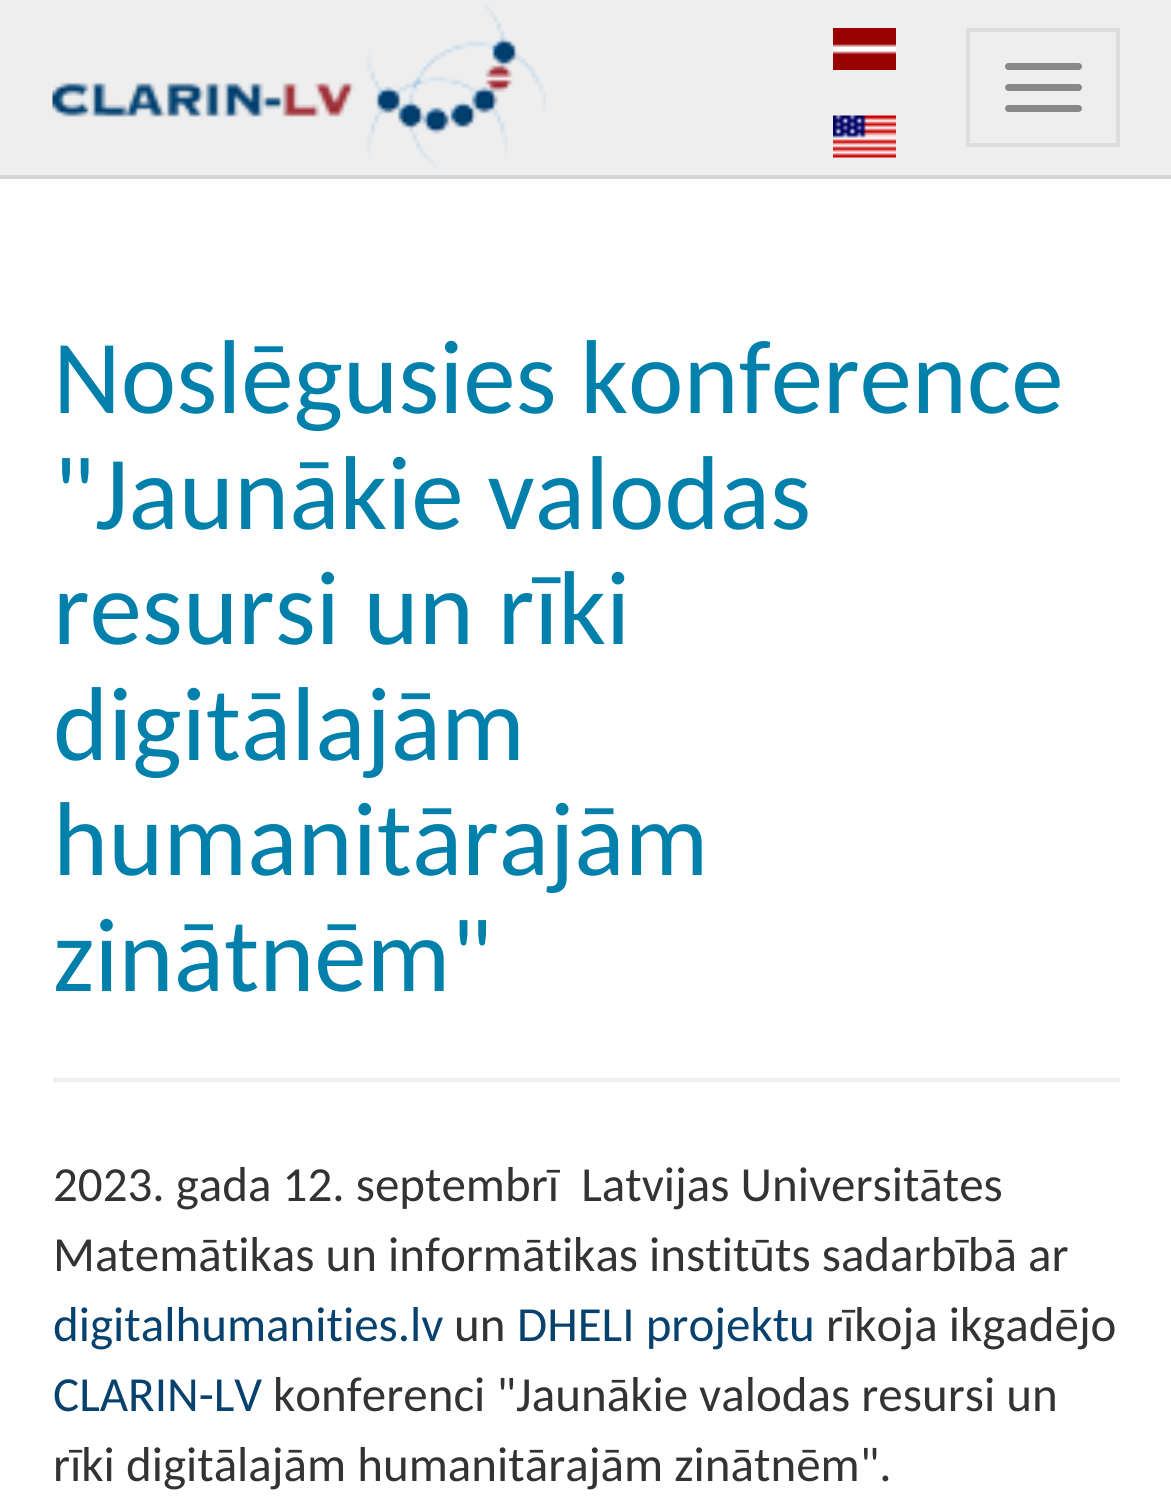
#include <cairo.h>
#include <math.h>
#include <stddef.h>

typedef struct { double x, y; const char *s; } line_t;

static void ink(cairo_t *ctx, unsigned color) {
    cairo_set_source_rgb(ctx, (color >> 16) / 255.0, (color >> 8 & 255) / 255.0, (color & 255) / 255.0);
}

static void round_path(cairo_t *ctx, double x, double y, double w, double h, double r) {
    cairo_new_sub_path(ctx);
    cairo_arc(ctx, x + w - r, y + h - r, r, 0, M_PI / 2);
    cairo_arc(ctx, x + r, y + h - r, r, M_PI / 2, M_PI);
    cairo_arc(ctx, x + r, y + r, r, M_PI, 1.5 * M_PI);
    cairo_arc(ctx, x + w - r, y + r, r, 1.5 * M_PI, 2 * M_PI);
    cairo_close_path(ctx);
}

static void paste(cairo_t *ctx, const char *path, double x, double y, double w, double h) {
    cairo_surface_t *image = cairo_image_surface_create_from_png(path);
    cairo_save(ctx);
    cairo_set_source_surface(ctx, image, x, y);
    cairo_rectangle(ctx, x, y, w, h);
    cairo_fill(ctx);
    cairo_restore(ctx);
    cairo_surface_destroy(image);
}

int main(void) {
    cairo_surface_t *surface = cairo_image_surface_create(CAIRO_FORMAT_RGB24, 1171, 1496);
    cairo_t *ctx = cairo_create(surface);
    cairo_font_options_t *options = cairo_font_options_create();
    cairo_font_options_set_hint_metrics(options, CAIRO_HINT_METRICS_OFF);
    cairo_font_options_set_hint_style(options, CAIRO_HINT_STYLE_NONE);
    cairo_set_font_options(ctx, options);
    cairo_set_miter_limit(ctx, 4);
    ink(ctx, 0xFFFFFF);
    cairo_paint(ctx);
    ink(ctx, 0xEEEEEE);
    cairo_rectangle(ctx, 0, 0, 1171, 175);
    cairo_fill(ctx);
    ink(ctx, 0xD5D5D5);
    cairo_rectangle(ctx, 0, 175, 1171, 4);
    cairo_fill(ctx);
    paste(ctx, "media/1.png", 52, 3, 494, 165);
    paste(ctx, "media/2.png", 833, 28, 63, 42);
    paste(ctx, "media/3.png", 833, 115, 63, 43);
    cairo_rectangle(ctx, 968, 30, 150, 115);
    ink(ctx, 0xDDDDDD);
    cairo_set_line_width(ctx, 4);
    cairo_stroke(ctx);
    ink(ctx, 0x888888);
    round_path(ctx, 1005, 63, 77, 7, 3.5);
    cairo_fill(ctx);
    round_path(ctx, 1005, 84, 77, 7, 3.5);
    cairo_fill(ctx);
    round_path(ctx, 1005, 105, 77, 7, 3.5);
    cairo_fill(ctx);
    ink(ctx, 0xEEEEEE);
    cairo_rectangle(ctx, 53, 1078, 1067, 4);
    cairo_fill(ctx);
    cairo_select_font_face(ctx, "Carlito", CAIRO_FONT_SLANT_NORMAL, CAIRO_FONT_WEIGHT_NORMAL);
    cairo_set_font_size(ctx, 105);
    ink(ctx, 0x0080AA);
    {
        static const line_t items[] = {
            {53, 413, "Noslēgusies konference"},
            {53, 529, "\"Jaunākie valodas"},
            {53, 644, "resursi un rīki"},
            {53, 760, "digitālajām"},
            {53, 875, "humanitārajām"},
            {53, 991, "zinātnēm\""},
        };
        for (size_t i = 0; i < sizeof items / sizeof *items; i++) {
            cairo_move_to(ctx, items[i].x, items[i].y);
            cairo_show_text(ctx, items[i].s);
        }
    }
    cairo_set_font_size(ctx, 49);
    ink(ctx, 0x333333);
    cairo_move_to(ctx, 53, 1201);
    cairo_show_text(ctx, "2023. gada 12. septembrī  Latvijas Universitātes");
    cairo_move_to(ctx, 53, 1271);
    cairo_show_text(ctx, "Matemātikas un informātikas institūts sadarbībā ar");
    ink(ctx, 0x07426E);
    cairo_move_to(ctx, 53, 1341);
    cairo_show_text(ctx, "digitalhumanities.lv");
    ink(ctx, 0x333333);
    cairo_move_to(ctx, 454, 1341);
    cairo_show_text(ctx, "un");
    ink(ctx, 0x07426E);
    cairo_move_to(ctx, 517, 1341);
    cairo_show_text(ctx, "DHELI projektu");
    ink(ctx, 0x333333);
    cairo_move_to(ctx, 826, 1341);
    cairo_show_text(ctx, "rīkoja ikgadējo");
    ink(ctx, 0x07426E);
    cairo_move_to(ctx, 53, 1411);
    cairo_show_text(ctx, "CLARIN-LV");
    ink(ctx, 0x333333);
    cairo_move_to(ctx, 273, 1411);
    cairo_show_text(ctx, "konferenci \"Jaunākie valodas resursi un");
    cairo_move_to(ctx, 53, 1481);
    cairo_show_text(ctx, "rīki digitālajām humanitārajām zinātnēm\".");
    cairo_surface_write_to_png(surface, "image.png");
    cairo_font_options_destroy(options);
    cairo_destroy(ctx);
    cairo_surface_destroy(surface);
    return 0;
}
